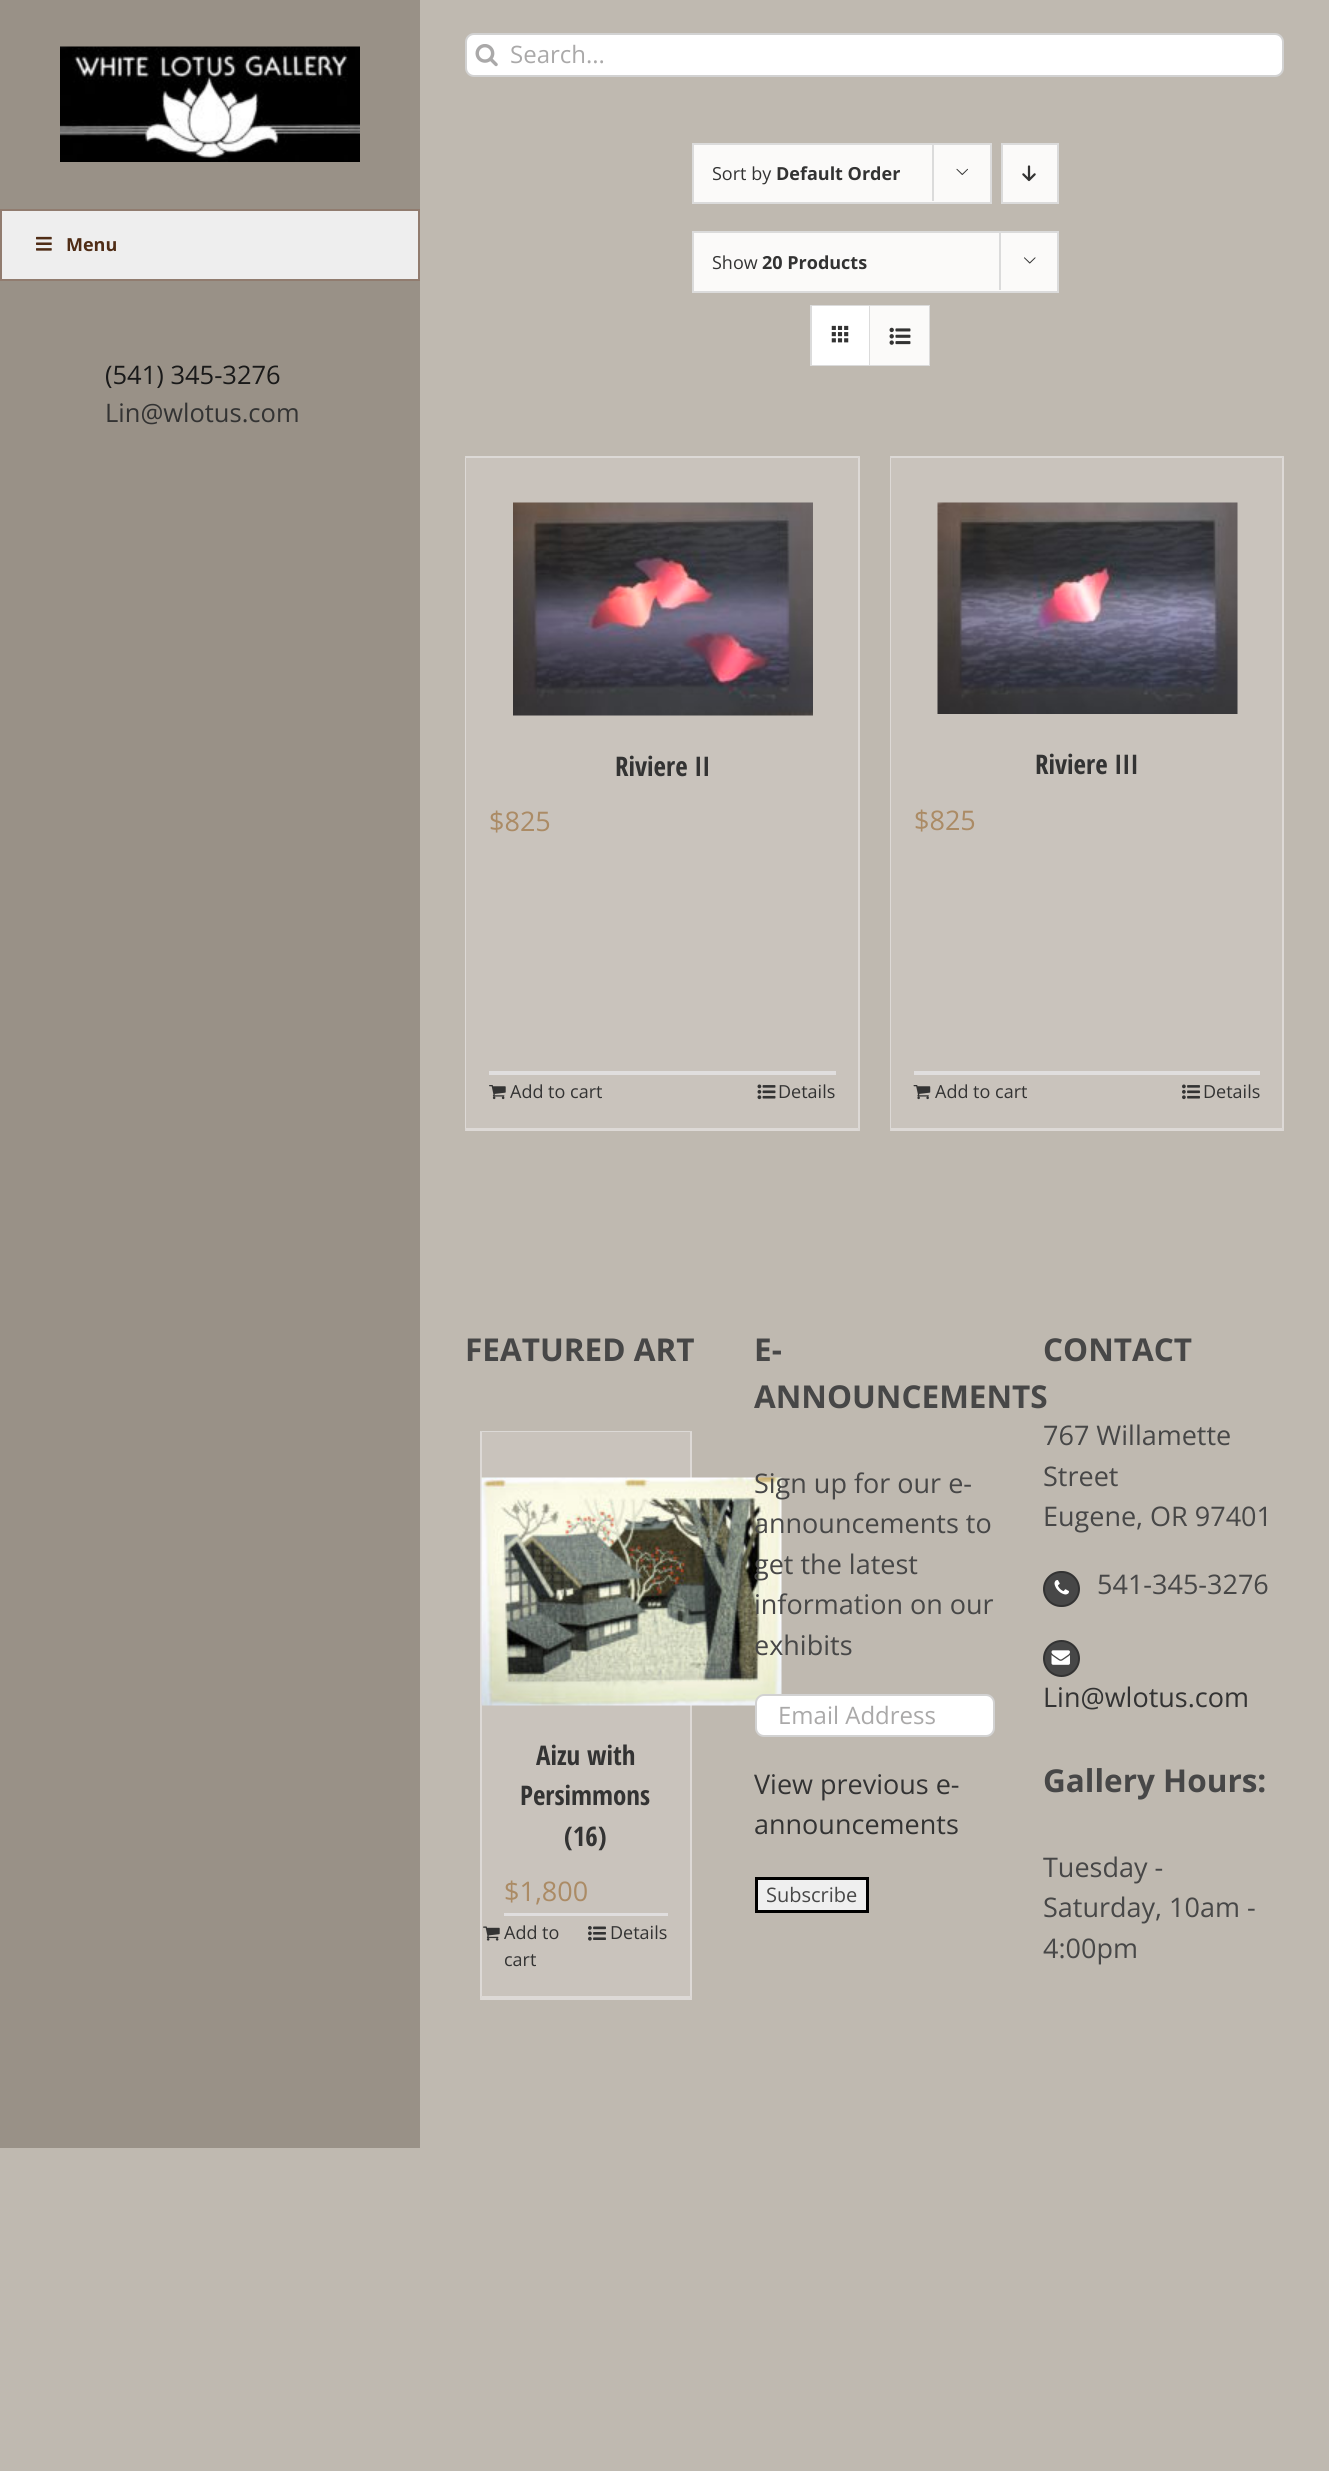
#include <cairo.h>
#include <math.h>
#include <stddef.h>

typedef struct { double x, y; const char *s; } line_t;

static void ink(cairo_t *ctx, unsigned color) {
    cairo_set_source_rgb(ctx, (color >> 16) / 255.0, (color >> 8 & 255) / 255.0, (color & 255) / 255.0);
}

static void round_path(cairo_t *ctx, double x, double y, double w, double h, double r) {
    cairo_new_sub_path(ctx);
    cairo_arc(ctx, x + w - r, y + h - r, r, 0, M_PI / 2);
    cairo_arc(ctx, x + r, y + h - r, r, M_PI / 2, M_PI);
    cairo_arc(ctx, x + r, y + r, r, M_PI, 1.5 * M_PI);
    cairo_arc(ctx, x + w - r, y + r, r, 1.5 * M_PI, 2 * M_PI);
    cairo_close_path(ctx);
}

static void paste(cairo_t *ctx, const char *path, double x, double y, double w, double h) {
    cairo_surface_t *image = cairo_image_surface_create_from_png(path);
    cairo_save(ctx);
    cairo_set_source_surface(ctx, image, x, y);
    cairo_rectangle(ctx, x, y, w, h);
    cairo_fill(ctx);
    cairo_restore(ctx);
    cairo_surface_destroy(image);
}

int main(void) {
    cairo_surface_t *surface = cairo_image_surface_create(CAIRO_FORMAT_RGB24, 1329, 2471);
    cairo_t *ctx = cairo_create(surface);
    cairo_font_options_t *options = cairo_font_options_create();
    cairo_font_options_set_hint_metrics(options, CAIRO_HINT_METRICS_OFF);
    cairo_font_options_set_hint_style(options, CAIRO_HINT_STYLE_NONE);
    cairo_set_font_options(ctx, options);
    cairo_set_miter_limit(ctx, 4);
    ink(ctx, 0xBFB9B0);
    cairo_paint(ctx);
    ink(ctx, 0xFFFFFF);
    round_path(ctx, 466, 34, 817, 42, 8);
    cairo_fill_preserve(ctx);
    ink(ctx, 0xD2D2D2);
    cairo_stroke(ctx);
    paste(ctx, "media/1.png", 475, 44, 23, 23);
    cairo_select_font_face(ctx, "Open Sans", CAIRO_FONT_SLANT_NORMAL, CAIRO_FONT_WEIGHT_NORMAL);
    cairo_set_font_size(ctx, 24);
    ink(ctx, 0xAAA9A9);
    cairo_move_to(ctx, 510, 63);
    cairo_show_text(ctx, "Search...");
    ink(ctx, 0x999187);
    cairo_rectangle(ctx, 0, 0, 420, 2148);
    cairo_fill(ctx);
    paste(ctx, "media/2.png", 60, 46, 300, 116);
    ink(ctx, 0xEEEEEE);
    cairo_rectangle(ctx, 1, 210, 418, 70);
    cairo_fill_preserve(ctx);
    ink(ctx, 0x917C6F);
    cairo_stroke(ctx);
    paste(ctx, "media/3.png", 36, 236, 16, 15);
    cairo_select_font_face(ctx, "Open Sans", CAIRO_FONT_SLANT_NORMAL, CAIRO_FONT_WEIGHT_BOLD);
    cairo_set_font_size(ctx, 18);
    ink(ctx, 0x502D16);
    cairo_move_to(ctx, 66, 251);
    cairo_show_text(ctx, "Menu");
    cairo_select_font_face(ctx, "Open Sans", CAIRO_FONT_SLANT_NORMAL, CAIRO_FONT_WEIGHT_NORMAL);
    cairo_set_font_size(ctx, 25.5);
    ink(ctx, 0x191919);
    cairo_move_to(ctx, 105, 384);
    cairo_show_text(ctx, "(541) 345-3276");
    ink(ctx, 0x333333);
    cairo_move_to(ctx, 105, 422);
    cairo_show_text(ctx, "Lin@wlotus.com");
    ink(ctx, 0xFBFAF9);
    cairo_rectangle(ctx, 693, 144, 298, 59);
    cairo_fill_preserve(ctx);
    ink(ctx, 0xDBDBDB);
    cairo_stroke(ctx);
    cairo_save(ctx);
    cairo_rectangle(ctx, 713, 144, 199, 59);
    cairo_clip(ctx);
    cairo_set_font_size(ctx, 18);
    ink(ctx, 0x333333);
    cairo_move_to(ctx, 712, 180);
    cairo_show_text(ctx, "Sort by");
    cairo_restore(ctx);
    cairo_select_font_face(ctx, "Open Sans", CAIRO_FONT_SLANT_NORMAL, CAIRO_FONT_WEIGHT_BOLD);
    cairo_set_font_size(ctx, 18);
    ink(ctx, 0x333333);
    cairo_move_to(ctx, 776, 180);
    cairo_show_text(ctx, "Default Order");
    ink(ctx, 0xDBDBDB);
    cairo_rectangle(ctx, 932, 143, 2, 58);
    cairo_fill(ctx);
    paste(ctx, "media/4.png", 956, 168, 12, 7);
    ink(ctx, 0xFBFAF9);
    cairo_rectangle(ctx, 1002, 144, 56, 59);
    cairo_fill_preserve(ctx);
    ink(ctx, 0xDBDBDB);
    cairo_stroke(ctx);
    paste(ctx, "media/5.png", 1022, 165, 14, 17);
    ink(ctx, 0xFBFAF9);
    cairo_rectangle(ctx, 693, 232, 365, 60);
    cairo_fill_preserve(ctx);
    ink(ctx, 0xDBDBDB);
    cairo_stroke(ctx);
    cairo_select_font_face(ctx, "Open Sans", CAIRO_FONT_SLANT_NORMAL, CAIRO_FONT_WEIGHT_NORMAL);
    ink(ctx, 0x333333);
    cairo_move_to(ctx, 712, 269);
    cairo_show_text(ctx, "Show");
    cairo_select_font_face(ctx, "Open Sans", CAIRO_FONT_SLANT_NORMAL, CAIRO_FONT_WEIGHT_BOLD);
    cairo_move_to(ctx, 762, 269);
    cairo_show_text(ctx, "20 Products");
    ink(ctx, 0xDBDBDB);
    cairo_rectangle(ctx, 999, 231, 2, 59);
    cairo_fill(ctx);
    paste(ctx, "media/6.png", 1024, 257, 12, 7);
    cairo_rectangle(ctx, 811, 306, 118, 59);
    cairo_stroke(ctx);
    ink(ctx, 0xFFFFFF);
    cairo_rectangle(ctx, 812, 306, 57, 59);
    cairo_fill(ctx);
    ink(ctx, 0xDBDBDB);
    cairo_rectangle(ctx, 869, 306, 1, 59);
    cairo_fill(ctx);
    paste(ctx, "media/7.png", 831, 325, 18, 18);
    ink(ctx, 0xFBFAF9);
    cairo_rectangle(ctx, 870, 306, 59, 59);
    cairo_fill(ctx);
    paste(ctx, "media/8.png", 889, 327, 22, 18);
    ink(ctx, 0xC9C3BC);
    cairo_rectangle(ctx, 465, 456, 395, 675);
    cairo_fill(ctx);
    ink(ctx, 0xDCD9D6);
    cairo_new_path(ctx);
    cairo_move_to(ctx, 465, 456);
    cairo_line_to(ctx, 860, 456);
    cairo_line_to(ctx, 858, 458);
    cairo_line_to(ctx, 466, 458);
    cairo_close_path(ctx);
    cairo_fill(ctx);
    cairo_set_source_rgba(ctx, 0.922, 0.918, 0.918, 0.57);
    cairo_new_path(ctx);
    cairo_move_to(ctx, 860, 456);
    cairo_line_to(ctx, 860, 1131);
    cairo_line_to(ctx, 858, 1128);
    cairo_line_to(ctx, 858, 458);
    cairo_close_path(ctx);
    cairo_fill(ctx);
    cairo_new_path(ctx);
    cairo_move_to(ctx, 860, 1131);
    cairo_line_to(ctx, 465, 1131);
    cairo_line_to(ctx, 466, 1128);
    cairo_line_to(ctx, 858, 1128);
    cairo_close_path(ctx);
    cairo_fill(ctx);
    cairo_new_path(ctx);
    cairo_move_to(ctx, 465, 1131);
    cairo_line_to(ctx, 465, 456);
    cairo_line_to(ctx, 466, 458);
    cairo_line_to(ctx, 466, 1128);
    cairo_close_path(ctx);
    cairo_fill(ctx);
    paste(ctx, "media/9.png", 513, 502, 300, 214);
    cairo_select_font_face(ctx, "Open Sans Condensed", CAIRO_FONT_SLANT_NORMAL, CAIRO_FONT_WEIGHT_BOLD);
    cairo_set_font_size(ctx, 27);
    ink(ctx, 0x333333);
    cairo_move_to(ctx, 615, 776);
    cairo_show_text(ctx, "Riviere II");
    cairo_select_font_face(ctx, "Open Sans", CAIRO_FONT_SLANT_NORMAL, CAIRO_FONT_WEIGHT_NORMAL);
    ink(ctx, 0xAB8B65);
    cairo_move_to(ctx, 489, 831);
    cairo_show_text(ctx, "$825");
    ink(ctx, 0xE0DEDE);
    cairo_rectangle(ctx, 489, 1071, 347, 4);
    cairo_fill(ctx);
    paste(ctx, "media/10.png", 489, 1085, 17, 15);
    cairo_set_font_size(ctx, 18);
    ink(ctx, 0x333333);
    cairo_move_to(ctx, 510, 1098);
    cairo_show_text(ctx, "Add to cart");
    paste(ctx, "media/11.png", 757, 1084, 19, 16);
    cairo_move_to(ctx, 778, 1098);
    cairo_show_text(ctx, "Details");
    ink(ctx, 0xC9C3BC);
    cairo_rectangle(ctx, 890, 456, 394, 675);
    cairo_fill(ctx);
    ink(ctx, 0xDCD9D6);
    cairo_new_path(ctx);
    cairo_move_to(ctx, 890, 456);
    cairo_line_to(ctx, 1284, 456);
    cairo_line_to(ctx, 1282, 458);
    cairo_line_to(ctx, 891, 458);
    cairo_close_path(ctx);
    cairo_fill(ctx);
    cairo_set_source_rgba(ctx, 0.922, 0.918, 0.918, 0.57);
    cairo_new_path(ctx);
    cairo_move_to(ctx, 1284, 456);
    cairo_line_to(ctx, 1284, 1131);
    cairo_line_to(ctx, 1282, 1128);
    cairo_line_to(ctx, 1282, 458);
    cairo_close_path(ctx);
    cairo_fill(ctx);
    cairo_new_path(ctx);
    cairo_move_to(ctx, 1284, 1131);
    cairo_line_to(ctx, 890, 1131);
    cairo_line_to(ctx, 891, 1128);
    cairo_line_to(ctx, 1282, 1128);
    cairo_close_path(ctx);
    cairo_fill(ctx);
    cairo_new_path(ctx);
    cairo_move_to(ctx, 890, 1131);
    cairo_line_to(ctx, 890, 456);
    cairo_line_to(ctx, 891, 458);
    cairo_line_to(ctx, 891, 1128);
    cairo_close_path(ctx);
    cairo_fill(ctx);
    paste(ctx, "media/12.png", 937, 502, 301, 212);
    cairo_select_font_face(ctx, "Open Sans Condensed", CAIRO_FONT_SLANT_NORMAL, CAIRO_FONT_WEIGHT_BOLD);
    cairo_set_font_size(ctx, 27);
    ink(ctx, 0x333333);
    cairo_move_to(ctx, 1035, 774);
    cairo_show_text(ctx, "Riviere III");
    cairo_select_font_face(ctx, "Open Sans", CAIRO_FONT_SLANT_NORMAL, CAIRO_FONT_WEIGHT_NORMAL);
    ink(ctx, 0xAB8B65);
    cairo_move_to(ctx, 914, 830);
    cairo_show_text(ctx, "$825");
    ink(ctx, 0xE0DEDE);
    cairo_rectangle(ctx, 914, 1071, 346, 4);
    cairo_fill(ctx);
    paste(ctx, "media/13.png", 913, 1085, 18, 15);
    cairo_set_font_size(ctx, 18);
    ink(ctx, 0x333333);
    cairo_move_to(ctx, 935, 1098);
    cairo_show_text(ctx, "Add to cart");
    paste(ctx, "media/14.png", 1182, 1084, 18, 16);
    cairo_move_to(ctx, 1203, 1098);
    cairo_show_text(ctx, "Details");
    cairo_select_font_face(ctx, "Open Sans", CAIRO_FONT_SLANT_NORMAL, CAIRO_FONT_WEIGHT_BOLD);
    cairo_set_font_size(ctx, 31.5);
    ink(ctx, 0x474747);
    cairo_move_to(ctx, 465, 1361);
    cairo_show_text(ctx, "FEATURED ART");
    ink(ctx, 0xC9C3BC);
    cairo_rectangle(ctx, 480, 1431, 212, 569);
    cairo_fill(ctx);
    ink(ctx, 0xDCD9D6);
    cairo_new_path(ctx);
    cairo_move_to(ctx, 480, 1431);
    cairo_line_to(ctx, 692, 1431);
    cairo_line_to(ctx, 690, 1432);
    cairo_line_to(ctx, 482, 1432);
    cairo_close_path(ctx);
    cairo_fill(ctx);
    cairo_set_source_rgba(ctx, 0.922, 0.918, 0.918, 0.57);
    cairo_new_path(ctx);
    cairo_move_to(ctx, 692, 1431);
    cairo_line_to(ctx, 692, 2000);
    cairo_line_to(ctx, 690, 1996);
    cairo_line_to(ctx, 690, 1432);
    cairo_close_path(ctx);
    cairo_fill(ctx);
    cairo_new_path(ctx);
    cairo_move_to(ctx, 692, 2000);
    cairo_line_to(ctx, 480, 2000);
    cairo_line_to(ctx, 482, 1996);
    cairo_line_to(ctx, 690, 1996);
    cairo_close_path(ctx);
    cairo_fill(ctx);
    cairo_new_path(ctx);
    cairo_move_to(ctx, 480, 2000);
    cairo_line_to(ctx, 480, 1431);
    cairo_line_to(ctx, 482, 1432);
    cairo_line_to(ctx, 482, 1996);
    cairo_close_path(ctx);
    cairo_fill(ctx);
    paste(ctx, "media/15.png", 481, 1477, 301, 229);
    cairo_select_font_face(ctx, "Open Sans Condensed", CAIRO_FONT_SLANT_NORMAL, CAIRO_FONT_WEIGHT_BOLD);
    cairo_set_font_size(ctx, 27);
    ink(ctx, 0x333333);
    {
        static const line_t items[] = {
            {536, 1765, "Aizu with"},
            {520, 1805, "Persimmons"},
            {564, 1846, "(16)"},
        };
        for (size_t i = 0; i < sizeof items / sizeof *items; i++) {
            cairo_move_to(ctx, items[i].x, items[i].y);
            cairo_show_text(ctx, items[i].s);
        }
    }
    cairo_select_font_face(ctx, "Open Sans", CAIRO_FONT_SLANT_NORMAL, CAIRO_FONT_WEIGHT_NORMAL);
    ink(ctx, 0xAB8B65);
    cairo_move_to(ctx, 504, 1901);
    cairo_show_text(ctx, "$1,800");
    ink(ctx, 0xE0DEDE);
    cairo_rectangle(ctx, 504, 1913, 164, 3);
    cairo_fill(ctx);
    paste(ctx, "media/16.png", 483, 1926, 17, 15);
    cairo_set_font_size(ctx, 18);
    ink(ctx, 0x333333);
    cairo_move_to(ctx, 504, 1939);
    cairo_show_text(ctx, "Add to");
    cairo_move_to(ctx, 504, 1966);
    cairo_show_text(ctx, "cart");
    paste(ctx, "media/17.png", 588, 1926, 18, 15);
    cairo_move_to(ctx, 610, 1939);
    cairo_show_text(ctx, "Details");
    cairo_select_font_face(ctx, "Open Sans", CAIRO_FONT_SLANT_NORMAL, CAIRO_FONT_WEIGHT_BOLD);
    cairo_set_font_size(ctx, 31.5);
    ink(ctx, 0x474747);
    cairo_move_to(ctx, 754, 1361);
    cairo_show_text(ctx, "E-");
    cairo_move_to(ctx, 754, 1408);
    cairo_show_text(ctx, "ANNOUNCEMENTS");
    cairo_select_font_face(ctx, "Open Sans", CAIRO_FONT_SLANT_NORMAL, CAIRO_FONT_WEIGHT_NORMAL);
    cairo_set_font_size(ctx, 27);
    {
        static const line_t items[] = {
            {754, 1493, "Sign up for our e-"},
            {754, 1533, "announcements to"},
            {754, 1574, "get the latest"},
            {754, 1614, "information on our"},
            {754, 1655, "exhibits"},
        };
        for (size_t i = 0; i < sizeof items / sizeof *items; i++) {
            cairo_move_to(ctx, items[i].x, items[i].y);
            cairo_show_text(ctx, items[i].s);
        }
    }
    ink(ctx, 0xFFFFFF);
    round_path(ctx, 756, 1695, 238, 41, 8);
    cairo_fill_preserve(ctx);
    ink(ctx, 0xD2D2D2);
    cairo_stroke(ctx);
    cairo_set_font_size(ctx, 24);
    ink(ctx, 0xAAA9A9);
    cairo_move_to(ctx, 778, 1724);
    cairo_show_text(ctx, "Email Address");
    cairo_set_font_size(ctx, 27);
    ink(ctx, 0x333333);
    cairo_move_to(ctx, 754, 1794);
    cairo_show_text(ctx, "View previous e-");
    cairo_move_to(ctx, 754, 1834);
    cairo_show_text(ctx, "announcements");
    ink(ctx, 0xEFEFEF);
    cairo_rectangle(ctx, 756.5, 1878.5, 111, 33);
    cairo_fill_preserve(ctx);
    ink(ctx, 0x000000);
    cairo_set_line_width(ctx, 3);
    cairo_stroke(ctx);
    cairo_set_font_size(ctx, 20);
    ink(ctx, 0x474747);
    cairo_move_to(ctx, 766, 1902);
    cairo_show_text(ctx, "Subscribe");
    cairo_select_font_face(ctx, "Open Sans", CAIRO_FONT_SLANT_NORMAL, CAIRO_FONT_WEIGHT_BOLD);
    cairo_set_font_size(ctx, 31.5);
    cairo_move_to(ctx, 1043, 1361);
    cairo_show_text(ctx, "CONTACT");
    cairo_select_font_face(ctx, "Open Sans", CAIRO_FONT_SLANT_NORMAL, CAIRO_FONT_WEIGHT_NORMAL);
    cairo_set_font_size(ctx, 27);
    {
        static const line_t items[] = {
            {1043, 1445, "767 Willamette"},
            {1043, 1486, "Street"},
            {1043, 1526, "Eugene, OR 97401"},
        };
        for (size_t i = 0; i < sizeof items / sizeof *items; i++) {
            cairo_move_to(ctx, items[i].x, items[i].y);
            cairo_show_text(ctx, items[i].s);
        }
    }
    round_path(ctx, 1044, 1572, 35, 34, 17);
    cairo_fill_preserve(ctx);
    ink(ctx, 0x333333);
    cairo_set_line_width(ctx, 2);
    cairo_stroke(ctx);
    paste(ctx, "media/18.png", 1054, 1580, 15, 15);
    ink(ctx, 0x474747);
    cairo_move_to(ctx, 1097, 1594);
    cairo_show_text(ctx, "541-345-3276");
    cairo_new_path(ctx);
    cairo_arc(ctx, 1061.5, 1658.5, 17.5, 0, 2 * M_PI);
    cairo_fill_preserve(ctx);
    ink(ctx, 0x333333);
    cairo_stroke(ctx);
    paste(ctx, "media/19.png", 1051, 1650, 19, 15);
    cairo_move_to(ctx, 1043, 1707);
    cairo_show_text(ctx, "Lin@wlotus.com");
    cairo_select_font_face(ctx, "Open Sans", CAIRO_FONT_SLANT_NORMAL, CAIRO_FONT_WEIGHT_BOLD);
    cairo_set_font_size(ctx, 31.5);
    ink(ctx, 0x474747);
    cairo_move_to(ctx, 1043, 1792);
    cairo_show_text(ctx, "Gallery Hours:");
    cairo_select_font_face(ctx, "Open Sans", CAIRO_FONT_SLANT_NORMAL, CAIRO_FONT_WEIGHT_NORMAL);
    cairo_set_font_size(ctx, 27);
    {
        static const line_t items[] = {
            {1043, 1877, "Tuesday -"},
            {1043, 1917, "Saturday, 10am -"},
            {1043, 1958, "4:00pm"},
        };
        for (size_t i = 0; i < sizeof items / sizeof *items; i++) {
            cairo_move_to(ctx, items[i].x, items[i].y);
            cairo_show_text(ctx, items[i].s);
        }
    }
    cairo_surface_write_to_png(surface, "image.png");
    cairo_font_options_destroy(options);
    cairo_destroy(ctx);
    cairo_surface_destroy(surface);
    return 0;
}
